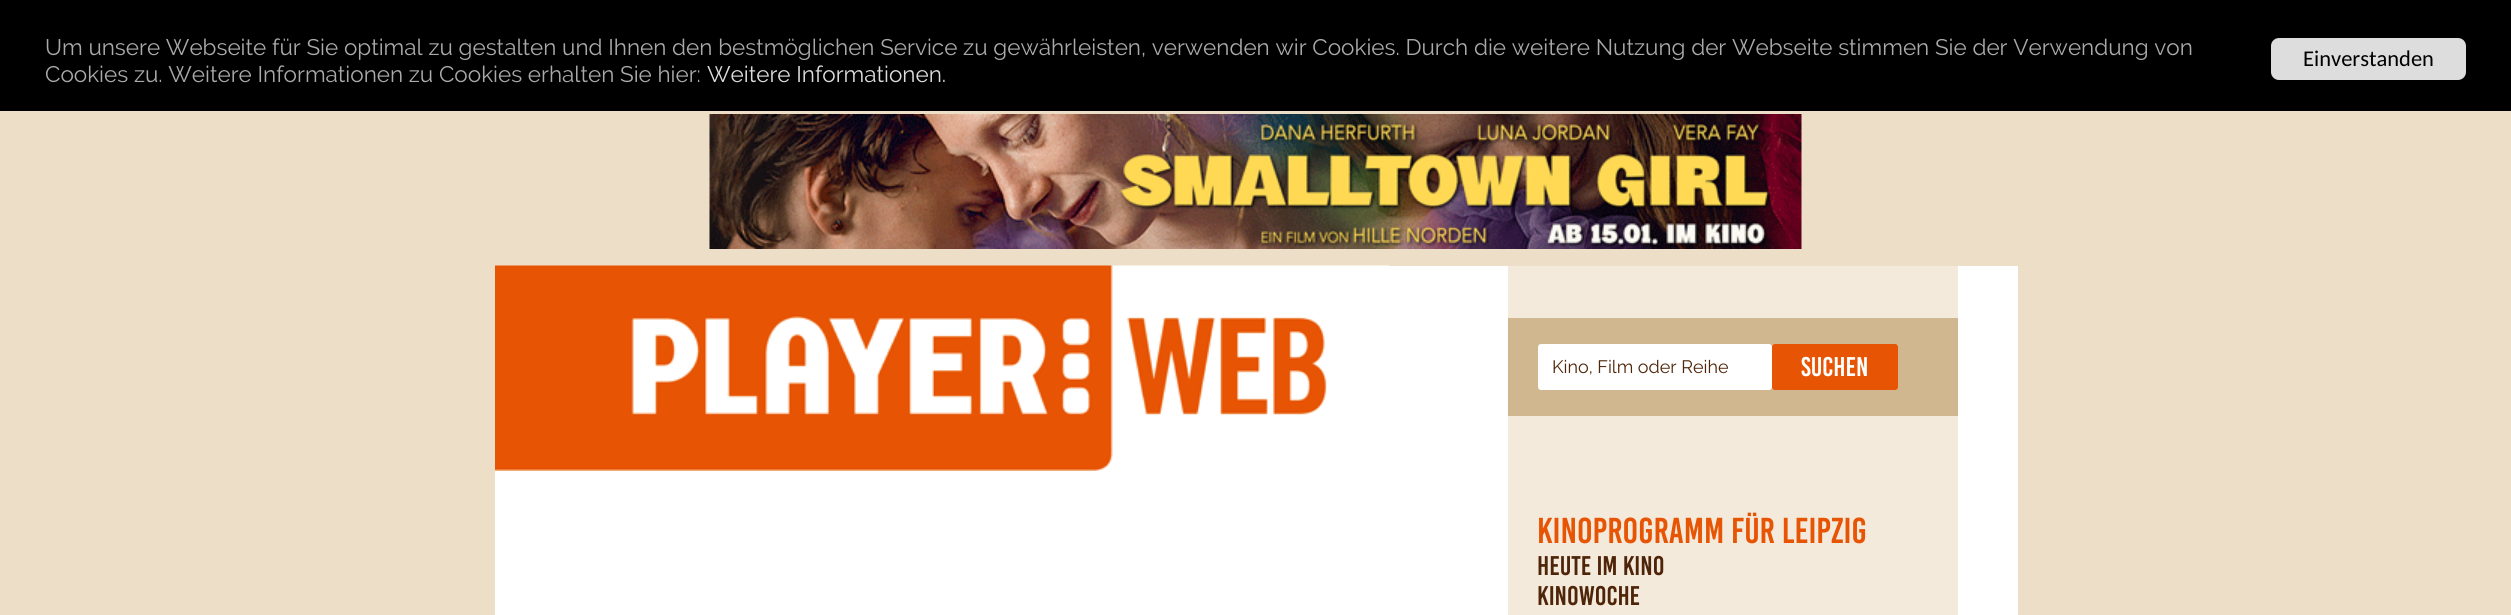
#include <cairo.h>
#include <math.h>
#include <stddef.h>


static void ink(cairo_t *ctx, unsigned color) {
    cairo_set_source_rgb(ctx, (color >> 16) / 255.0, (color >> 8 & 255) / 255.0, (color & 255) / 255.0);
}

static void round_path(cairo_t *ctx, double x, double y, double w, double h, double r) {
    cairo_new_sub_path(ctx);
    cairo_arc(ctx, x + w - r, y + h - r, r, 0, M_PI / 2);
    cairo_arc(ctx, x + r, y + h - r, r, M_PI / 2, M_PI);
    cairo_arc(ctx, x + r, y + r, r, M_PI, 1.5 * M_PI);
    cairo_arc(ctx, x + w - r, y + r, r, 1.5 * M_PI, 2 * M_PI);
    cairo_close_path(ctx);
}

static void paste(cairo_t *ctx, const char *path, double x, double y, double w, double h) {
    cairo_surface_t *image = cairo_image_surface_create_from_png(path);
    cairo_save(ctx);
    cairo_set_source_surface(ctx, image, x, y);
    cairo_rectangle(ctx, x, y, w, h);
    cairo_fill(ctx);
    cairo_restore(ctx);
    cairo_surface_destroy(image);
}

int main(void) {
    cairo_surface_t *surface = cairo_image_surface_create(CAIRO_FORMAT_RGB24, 2511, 615);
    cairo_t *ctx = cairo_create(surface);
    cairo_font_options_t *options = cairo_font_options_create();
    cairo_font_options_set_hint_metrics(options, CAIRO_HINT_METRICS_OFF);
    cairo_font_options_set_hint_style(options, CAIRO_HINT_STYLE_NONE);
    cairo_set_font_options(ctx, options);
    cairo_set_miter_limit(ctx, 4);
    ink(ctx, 0xEDDFC7);
    cairo_paint(ctx);
    ink(ctx, 0x000000);
    cairo_rectangle(ctx, 0, 0, 2511, 111);
    cairo_fill(ctx);
    cairo_select_font_face(ctx, "Raleway", CAIRO_FONT_SLANT_NORMAL, CAIRO_FONT_WEIGHT_NORMAL);
    cairo_set_font_size(ctx, 22.5);
    ink(ctx, 0xAAAAAA);
    cairo_move_to(ctx, 45, 55);
    cairo_show_text(ctx, "Um unsere Webseite für Sie optimal zu gestalten und Ihnen den bestmöglichen Service zu gewährleisten, verwenden wir Cookies. Durch die weitere Nutzung der Webseite stimmen Sie der Verwendung von");
    cairo_move_to(ctx, 45, 82);
    cairo_show_text(ctx, "Cookies zu. Weitere Informationen zu Cookies erhalten Sie hier:");
    ink(ctx, 0xDDDDDD);
    cairo_move_to(ctx, 707, 82);
    cairo_show_text(ctx, "Weitere Informationen.");
    round_path(ctx, 2271, 38, 195, 42, 8);
    cairo_fill(ctx);
    cairo_select_font_face(ctx, "Carlito", CAIRO_FONT_SLANT_NORMAL, CAIRO_FONT_WEIGHT_NORMAL);
    ink(ctx, 0x000000);
    cairo_move_to(ctx, 2303, 66);
    cairo_show_text(ctx, "Einverstanden");
    ink(ctx, 0xFFFFFF);
    cairo_rectangle(ctx, 495, 266, 1523, 349);
    cairo_fill(ctx);
    paste(ctx, "media/1.png", 709, 114, 1093, 135);
    paste(ctx, "media/2.png", 495, 265, 894, 206);
    ink(ctx, 0xF3EADC);
    cairo_rectangle(ctx, 1508, 266, 450, 349);
    cairo_fill(ctx);
    ink(ctx, 0xD1B790);
    cairo_rectangle(ctx, 1508, 318, 450, 98);
    cairo_fill(ctx);
    ink(ctx, 0xFFFFFF);
    round_path(ctx, 1538, 344, 234, 46, 3);
    cairo_fill(ctx);
    cairo_select_font_face(ctx, "Raleway", CAIRO_FONT_SLANT_NORMAL, CAIRO_FONT_WEIGHT_NORMAL);
    cairo_set_font_size(ctx, 18);
    ink(ctx, 0x4F2509);
    cairo_move_to(ctx, 1552, 373);
    cairo_show_text(ctx, "Kino, Film oder Reihe");
    ink(ctx, 0xE75504);
    round_path(ctx, 1772, 344, 126, 46, 3);
    cairo_fill(ctx);
    cairo_select_font_face(ctx, "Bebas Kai", CAIRO_FONT_SLANT_NORMAL, CAIRO_FONT_WEIGHT_NORMAL);
    cairo_set_font_size(ctx, 27);
    ink(ctx, 0xFFFFFF);
    cairo_move_to(ctx, 1801, 376);
    cairo_show_text(ctx, "SUCHEN");
    cairo_set_font_size(ctx, 36);
    ink(ctx, 0xE75504);
    cairo_move_to(ctx, 1537, 543);
    cairo_show_text(ctx, "KINOPROGRAMM FÜR LEIPZIG");
    cairo_set_font_size(ctx, 27);
    ink(ctx, 0x4F2509);
    cairo_move_to(ctx, 1537, 575);
    cairo_show_text(ctx, "HEUTE IM KINO");
    cairo_move_to(ctx, 1537, 605);
    cairo_show_text(ctx, "KINOWOCHE");
    cairo_surface_write_to_png(surface, "image.png");
    cairo_font_options_destroy(options);
    cairo_destroy(ctx);
    cairo_surface_destroy(surface);
    return 0;
}
